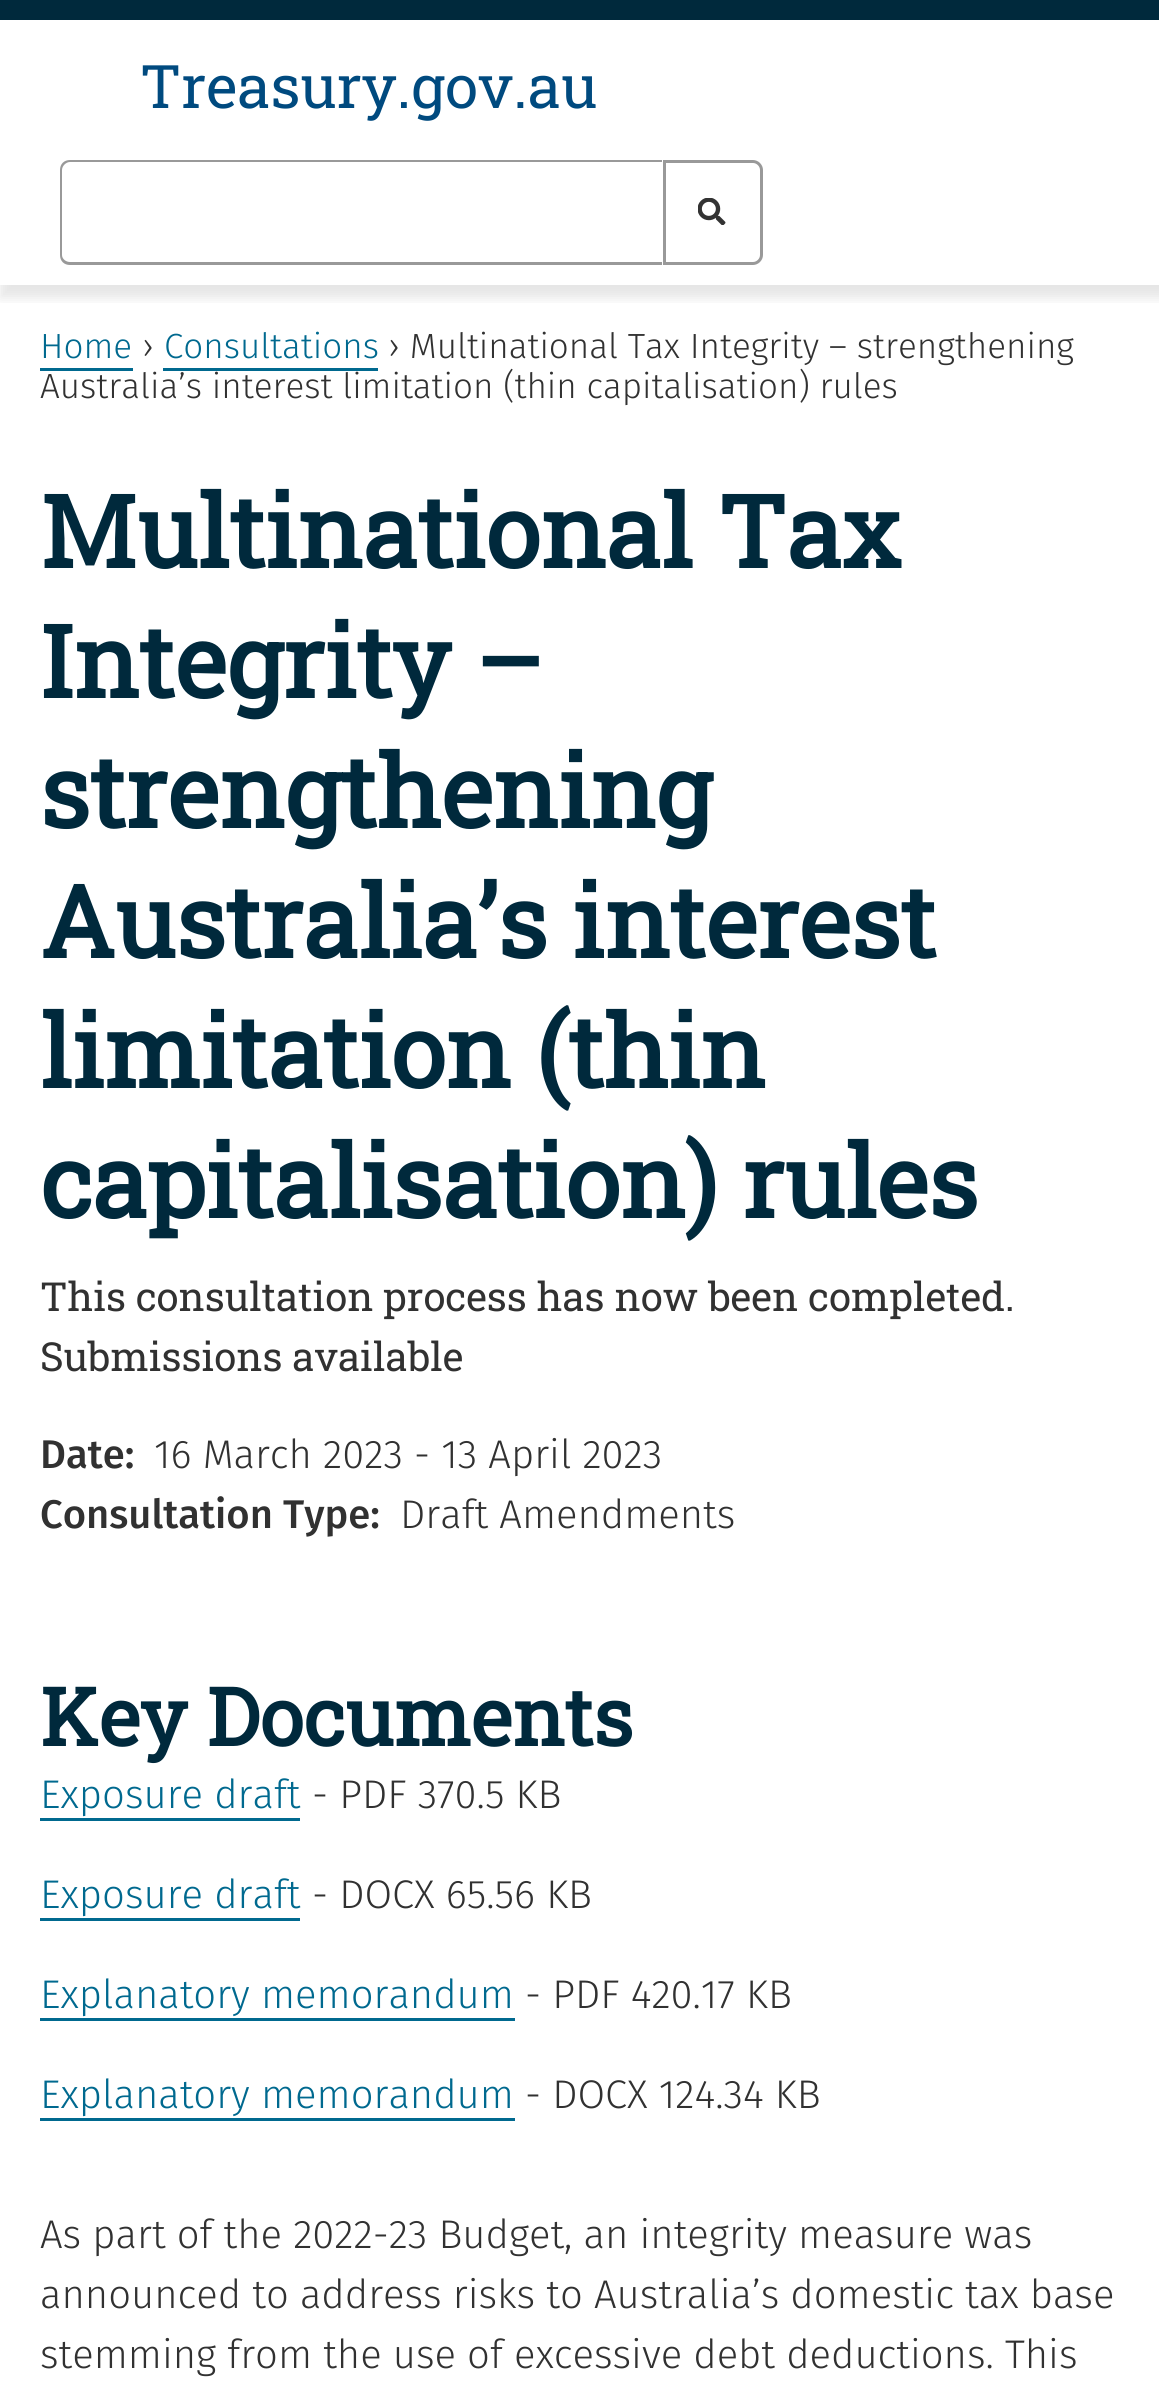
#include <cairo.h>
#include <math.h>
#include <stddef.h>

typedef struct { double x, y; const char *s; } line_t;

static void ink(cairo_t *ctx, unsigned color) {
    cairo_set_source_rgb(ctx, (color >> 16) / 255.0, (color >> 8 & 255) / 255.0, (color & 255) / 255.0);
}

static void round_path(cairo_t *ctx, double x, double y, double w, double h, double r) {
    cairo_new_sub_path(ctx);
    cairo_arc(ctx, x + w - r, y + h - r, r, 0, M_PI / 2);
    cairo_arc(ctx, x + r, y + h - r, r, M_PI / 2, M_PI);
    cairo_arc(ctx, x + r, y + r, r, M_PI, 1.5 * M_PI);
    cairo_arc(ctx, x + w - r, y + r, r, 1.5 * M_PI, 2 * M_PI);
    cairo_close_path(ctx);
}

static void blur_box(cairo_t *ctx, double x, double y, double w, double h, double r, double blur, double alpha) {
    cairo_push_group_with_content(ctx, CAIRO_CONTENT_ALPHA);
    cairo_set_operator(ctx, CAIRO_OPERATOR_SOURCE);
    for (int i = 15; i >= -15 && fmin(w, h) + blur * i / 3 > 0; i -= 2) {
        double e = blur * i / 6;
        cairo_set_source_rgba(ctx, 0, 0, 0, alpha * erfc((i - 1) / 8.5) / 2);
        round_path(ctx, x - e, y - e, w + 2 * e, h + 2 * e, fmax(0, fmin(r + e + blur * .6, fmin(w, h) / 2 + e)));
        cairo_fill(ctx);
    }
    cairo_pattern_t *soft = cairo_pop_group(ctx);
    cairo_mask(ctx, soft);
    cairo_pattern_destroy(soft);
}

static void paste(cairo_t *ctx, const char *path, double x, double y, double w, double h) {
    cairo_surface_t *image = cairo_image_surface_create_from_png(path);
    cairo_save(ctx);
    cairo_set_source_surface(ctx, image, x, y);
    cairo_rectangle(ctx, x, y, w, h);
    cairo_fill(ctx);
    cairo_restore(ctx);
    cairo_surface_destroy(image);
}

int main(void) {
    cairo_surface_t *surface = cairo_image_surface_create(CAIRO_FORMAT_RGB24, 1159, 2400);
    cairo_t *ctx = cairo_create(surface);
    cairo_font_options_t *options = cairo_font_options_create();
    cairo_font_options_set_hint_metrics(options, CAIRO_HINT_METRICS_OFF);
    cairo_font_options_set_hint_style(options, CAIRO_HINT_STYLE_NONE);
    cairo_set_font_options(ctx, options);
    cairo_set_miter_limit(ctx, 4);
    ink(ctx, 0xFFFFFF);
    cairo_paint(ctx);
    cairo_save(ctx);
    cairo_rectangle(ctx, 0, 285, 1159, 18);
    cairo_clip(ctx);
    ink(ctx, 0x000000);
    blur_box(ctx, 0, 13, 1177, 285, 0, 6, 0.1);
    cairo_restore(ctx);
    ink(ctx, 0x00293C);
    cairo_rectangle(ctx, 0, 0, 1159, 20);
    cairo_fill(ctx);
    cairo_select_font_face(ctx, "Roboto Slab", CAIRO_FONT_SLANT_NORMAL, CAIRO_FONT_WEIGHT_NORMAL);
    cairo_set_font_size(ctx, 60);
    ink(ctx, 0x004A7F);
    cairo_move_to(ctx, 140, 108);
    cairo_show_text(ctx, "Treasury.gov.au");
    ink(ctx, 0x999999);
    cairo_set_fill_rule(ctx, CAIRO_FILL_RULE_EVEN_ODD);
    cairo_new_path(ctx);
    cairo_move_to(ctx, 70, 160);
    cairo_line_to(ctx, 662, 160);
    cairo_line_to(ctx, 662, 265);
    cairo_line_to(ctx, 70, 265);
    cairo_curve_to(ctx, 64, 265, 60, 261, 60, 255);
    cairo_line_to(ctx, 60, 170);
    cairo_curve_to(ctx, 60, 164, 64, 160, 70, 160);
    cairo_close_path(ctx);
    cairo_move_to(ctx, 70, 162);
    cairo_line_to(ctx, 662, 162);
    cairo_line_to(ctx, 662, 262);
    cairo_line_to(ctx, 70, 262);
    cairo_curve_to(ctx, 66, 262, 62, 259, 62, 255);
    cairo_line_to(ctx, 62, 170);
    cairo_curve_to(ctx, 62, 166, 66, 162, 70, 162);
    cairo_close_path(ctx);
    cairo_fill(ctx);
    paste(ctx, "media/1.png", 698, 198, 28, 27);
    cairo_new_path(ctx);
    cairo_move_to(ctx, 664.5, 161.5);
    cairo_line_to(ctx, 753, 161.5);
    cairo_curve_to(ctx, 757.5, 161.5, 761.5, 165.5, 761.5, 170);
    cairo_line_to(ctx, 761.5, 255);
    cairo_curve_to(ctx, 761.5, 259.5, 757.5, 263.5, 753, 263.5);
    cairo_line_to(ctx, 664.5, 263.5);
    cairo_close_path(ctx);
    cairo_set_line_width(ctx, 3);
    cairo_stroke(ctx);
    cairo_select_font_face(ctx, "Fira Sans Light", CAIRO_FONT_SLANT_NORMAL, CAIRO_FONT_WEIGHT_NORMAL);
    cairo_set_font_size(ctx, 35);
    ink(ctx, 0x00698F);
    cairo_move_to(ctx, 40, 358);
    cairo_show_text(ctx, "Home");
    cairo_rectangle(ctx, 40, 368, 93, 3);
    cairo_fill(ctx);
    ink(ctx, 0x313131);
    cairo_move_to(ctx, 142, 358);
    cairo_show_text(ctx, "›");
    ink(ctx, 0x00698F);
    cairo_move_to(ctx, 164, 358);
    cairo_show_text(ctx, "Consultations");
    cairo_rectangle(ctx, 163, 368, 215, 3);
    cairo_fill(ctx);
    ink(ctx, 0x313131);
    cairo_move_to(ctx, 388, 358);
    cairo_show_text(ctx, "› Multinational Tax Integrity – strengthening");
    cairo_move_to(ctx, 40, 398);
    cairo_show_text(ctx, "Australia’s interest limitation (thin capitalisation) rules");
    cairo_select_font_face(ctx, "Roboto Slab", CAIRO_FONT_SLANT_NORMAL, CAIRO_FONT_WEIGHT_BOLD);
    cairo_set_font_size(ctx, 100);
    ink(ctx, 0x00293C);
    {
        static const line_t items[] = {
            {40, 568, "Multinational Tax"},
            {40, 698, "Integrity –"},
            {40, 828, "strengthening"},
            {40, 958, "Australia’s interest"},
            {40, 1088, "limitation (thin"},
            {40, 1218, "capitalisation) rules"},
        };
        for (size_t i = 0; i < sizeof items / sizeof *items; i++) {
            cairo_move_to(ctx, items[i].x, items[i].y);
            cairo_show_text(ctx, items[i].s);
        }
    }
    cairo_select_font_face(ctx, "Roboto Slab", CAIRO_FONT_SLANT_NORMAL, CAIRO_FONT_WEIGHT_NORMAL);
    cairo_set_font_size(ctx, 40);
    ink(ctx, 0x313131);
    cairo_move_to(ctx, 40, 1311);
    cairo_show_text(ctx, "This consultation process has now been completed.");
    cairo_move_to(ctx, 40, 1371);
    cairo_show_text(ctx, "Submissions available");
    cairo_select_font_face(ctx, "Fira Sans Medium", CAIRO_FONT_SLANT_NORMAL, CAIRO_FONT_WEIGHT_NORMAL);
    cairo_move_to(ctx, 40, 1468);
    cairo_show_text(ctx, "Date:");
    cairo_select_font_face(ctx, "Fira Sans Light", CAIRO_FONT_SLANT_NORMAL, CAIRO_FONT_WEIGHT_NORMAL);
    cairo_move_to(ctx, 154, 1468);
    cairo_show_text(ctx, "16 March 2023 - 13 April 2023");
    cairo_select_font_face(ctx, "Fira Sans Medium", CAIRO_FONT_SLANT_NORMAL, CAIRO_FONT_WEIGHT_NORMAL);
    cairo_move_to(ctx, 40, 1528);
    cairo_show_text(ctx, "Consultation Type:");
    cairo_select_font_face(ctx, "Fira Sans Light", CAIRO_FONT_SLANT_NORMAL, CAIRO_FONT_WEIGHT_NORMAL);
    cairo_move_to(ctx, 400, 1528);
    cairo_show_text(ctx, "Draft Amendments");
    cairo_select_font_face(ctx, "Roboto Slab", CAIRO_FONT_SLANT_NORMAL, CAIRO_FONT_WEIGHT_BOLD);
    cairo_set_font_size(ctx, 80);
    ink(ctx, 0x00293C);
    cairo_move_to(ctx, 40, 1746);
    cairo_show_text(ctx, "Key Documents");
    cairo_select_font_face(ctx, "Fira Sans Light", CAIRO_FONT_SLANT_NORMAL, CAIRO_FONT_WEIGHT_NORMAL);
    cairo_set_font_size(ctx, 40);
    ink(ctx, 0x00698F);
    cairo_move_to(ctx, 40, 1808);
    cairo_show_text(ctx, "Exposure draft");
    cairo_rectangle(ctx, 40, 1818, 260, 3);
    cairo_fill(ctx);
    ink(ctx, 0x313131);
    cairo_move_to(ctx, 312, 1808);
    cairo_show_text(ctx, "- PDF 370.5 KB");
    ink(ctx, 0x00698F);
    cairo_move_to(ctx, 40, 1908);
    cairo_show_text(ctx, "Exposure draft");
    cairo_rectangle(ctx, 40, 1918, 260, 3);
    cairo_fill(ctx);
    ink(ctx, 0x313131);
    cairo_move_to(ctx, 312, 1908);
    cairo_show_text(ctx, "- DOCX 65.56 KB");
    ink(ctx, 0x00698F);
    cairo_move_to(ctx, 40, 2008);
    cairo_show_text(ctx, "Explanatory memorandum");
    cairo_rectangle(ctx, 40, 2018, 475, 3);
    cairo_fill(ctx);
    ink(ctx, 0x313131);
    cairo_move_to(ctx, 525, 2008);
    cairo_show_text(ctx, "- PDF 420.17 KB");
    ink(ctx, 0x00698F);
    cairo_move_to(ctx, 40, 2108);
    cairo_show_text(ctx, "Explanatory memorandum");
    cairo_rectangle(ctx, 40, 2118, 475, 3);
    cairo_fill(ctx);
    ink(ctx, 0x313131);
    {
        static const line_t items[] = {
            {525, 2108, "- DOCX 124.34 KB"},
            {40, 2248, "As part of the 2022-23 Budget, an integrity measure was"},
            {40, 2308, "announced to address risks to Australia’s domestic tax base"},
            {40, 2368, "stemming from the use of excessive debt deductions. This"},
        };
        for (size_t i = 0; i < sizeof items / sizeof *items; i++) {
            cairo_move_to(ctx, items[i].x, items[i].y);
            cairo_show_text(ctx, items[i].s);
        }
    }
    cairo_surface_write_to_png(surface, "image.png");
    cairo_font_options_destroy(options);
    cairo_destroy(ctx);
    cairo_surface_destroy(surface);
    return 0;
}
